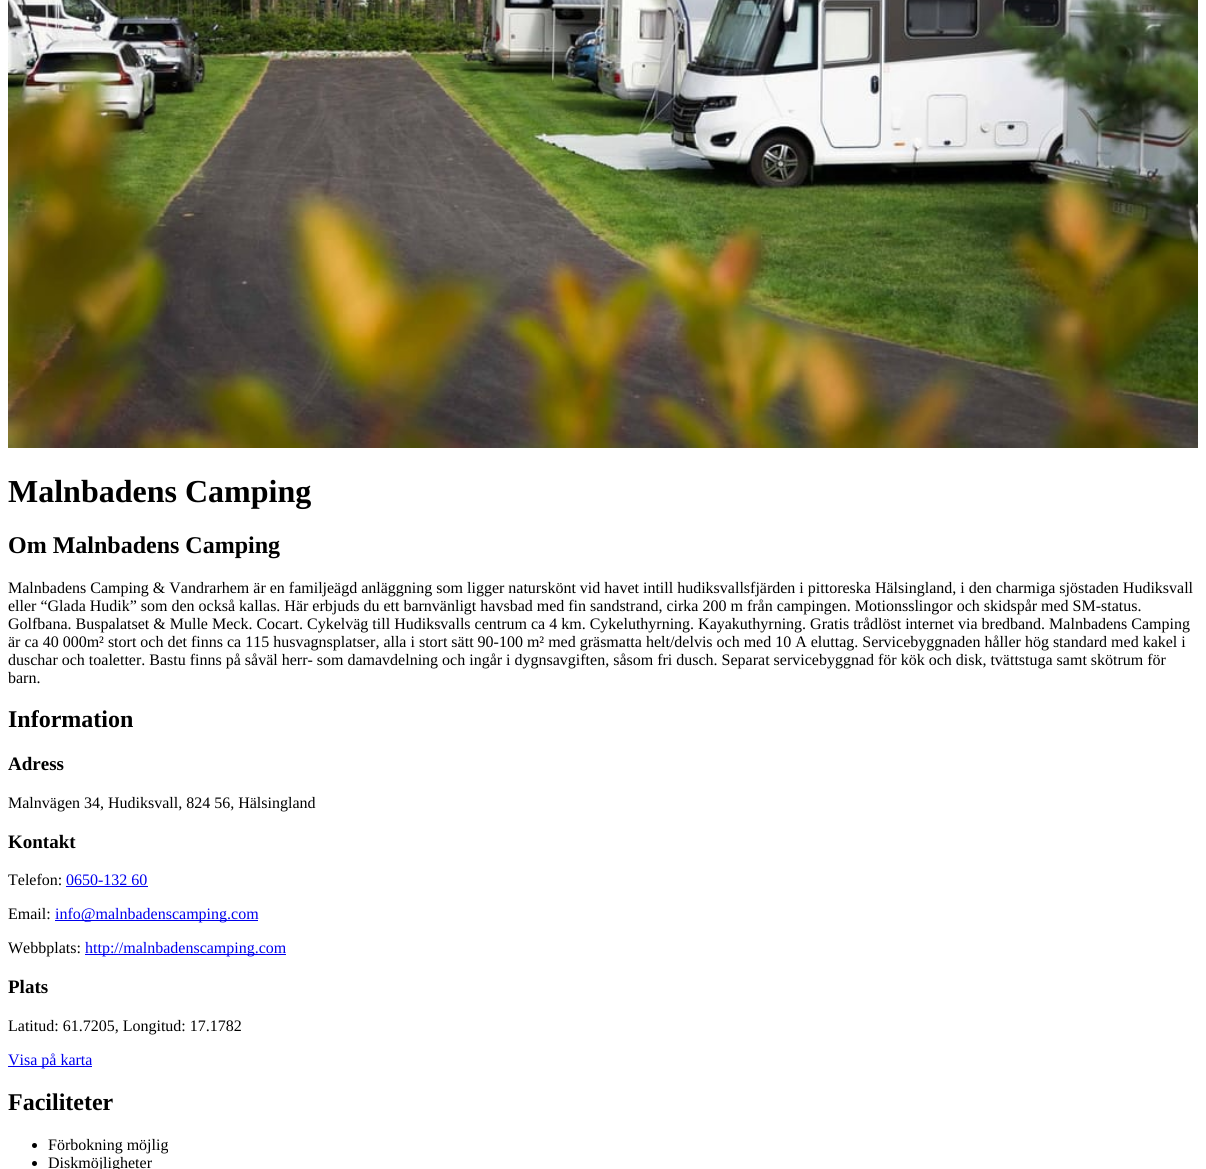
#include <cairo.h>
#include <math.h>
#include <stddef.h>

typedef struct { double x, y; const char *s; } line_t;

static void ink(cairo_t *ctx, unsigned color) {
    cairo_set_source_rgb(ctx, (color >> 16) / 255.0, (color >> 8 & 255) / 255.0, (color & 255) / 255.0);
}

static void paste(cairo_t *ctx, const char *path, double x, double y, double w, double h) {
    cairo_surface_t *image = cairo_image_surface_create_from_png(path);
    cairo_save(ctx);
    cairo_set_source_surface(ctx, image, x, y);
    cairo_rectangle(ctx, x, y, w, h);
    cairo_fill(ctx);
    cairo_restore(ctx);
    cairo_surface_destroy(image);
}

int main(void) {
    cairo_surface_t *surface = cairo_image_surface_create(CAIRO_FORMAT_RGB24, 1206, 1169);
    cairo_t *ctx = cairo_create(surface);
    cairo_font_options_t *options = cairo_font_options_create();
    cairo_font_options_set_hint_metrics(options, CAIRO_HINT_METRICS_OFF);
    cairo_font_options_set_hint_style(options, CAIRO_HINT_STYLE_NONE);
    cairo_set_font_options(ctx, options);
    cairo_set_miter_limit(ctx, 4);
    ink(ctx, 0xFFFFFF);
    cairo_paint(ctx);
    paste(ctx, "media/1.png", 8, 0, 1190, 448);
    cairo_select_font_face(ctx, "Liberation Serif", CAIRO_FONT_SLANT_NORMAL, CAIRO_FONT_WEIGHT_BOLD);
    cairo_set_font_size(ctx, 32);
    ink(ctx, 0x000000);
    cairo_move_to(ctx, 8, 502);
    cairo_show_text(ctx, "Malnbadens Camping");
    cairo_set_font_size(ctx, 24);
    cairo_move_to(ctx, 8, 553);
    cairo_show_text(ctx, "Om Malnbadens Camping");
    cairo_select_font_face(ctx, "Liberation Serif", CAIRO_FONT_SLANT_NORMAL, CAIRO_FONT_WEIGHT_NORMAL);
    cairo_set_font_size(ctx, 16);
    {
        static const line_t items[] = {
            {8, 593, "Malnbadens Camping & Vandrarhem är en familjeägd anläggning som ligger naturskönt vid havet intill hudiksvallsfjärden i pittoreska Hälsingland, i den charmiga sjöstaden Hudiksvall"},
            {8, 611, "eller “Glada Hudik” som den också kallas. Här erbjuds du ett barnvänligt havsbad med fin sandstrand, cirka 200 m från campingen. Motionsslingor och skidspår med SM-status."},
            {8, 629, "Golfbana. Buspalatset & Mulle Meck. Cocart. Cykelväg till Hudiksvalls centrum ca 4 km. Cykeluthyrning. Kayakuthyrning. Gratis trådlöst internet via bredband. Malnbadens Camping"},
            {8, 647, "är ca 40 000m² stort och det finns ca 115 husvagnsplatser, alla i stort sätt 90-100 m² med gräsmatta helt/delvis och med 10 A eluttag. Servicebyggnaden håller hög standard med kakel i"},
            {8, 665, "duschar och toaletter. Bastu finns på såväl herr- som damavdelning och ingår i dygnsavgiften, såsom fri dusch. Separat servicebyggnad för kök och disk, tvättstuga samt skötrum för"},
            {8, 683, "barn."},
        };
        for (size_t i = 0; i < sizeof items / sizeof *items; i++) {
            cairo_move_to(ctx, items[i].x, items[i].y);
            cairo_show_text(ctx, items[i].s);
        }
    }
    cairo_select_font_face(ctx, "Liberation Serif", CAIRO_FONT_SLANT_NORMAL, CAIRO_FONT_WEIGHT_BOLD);
    cairo_set_font_size(ctx, 24);
    cairo_move_to(ctx, 8, 727);
    cairo_show_text(ctx, "Information");
    cairo_set_font_size(ctx, 19);
    cairo_move_to(ctx, 8, 770);
    cairo_show_text(ctx, "Adress");
    cairo_select_font_face(ctx, "Liberation Serif", CAIRO_FONT_SLANT_NORMAL, CAIRO_FONT_WEIGHT_NORMAL);
    cairo_set_font_size(ctx, 16);
    cairo_move_to(ctx, 8, 808);
    cairo_show_text(ctx, "Malnvägen 34, Hudiksvall, 824 56, Hälsingland");
    cairo_select_font_face(ctx, "Liberation Serif", CAIRO_FONT_SLANT_NORMAL, CAIRO_FONT_WEIGHT_BOLD);
    cairo_set_font_size(ctx, 19);
    cairo_move_to(ctx, 8, 848);
    cairo_show_text(ctx, "Kontakt");
    cairo_select_font_face(ctx, "Liberation Serif", CAIRO_FONT_SLANT_NORMAL, CAIRO_FONT_WEIGHT_NORMAL);
    cairo_set_font_size(ctx, 16);
    cairo_move_to(ctx, 8, 885);
    cairo_show_text(ctx, "Telefon:");
    ink(ctx, 0x0000EE);
    cairo_move_to(ctx, 66, 885);
    cairo_show_text(ctx, "0650-132 60");
    cairo_rectangle(ctx, 66, 886, 82, 1);
    cairo_fill(ctx);
    ink(ctx, 0x000000);
    cairo_move_to(ctx, 8, 919);
    cairo_show_text(ctx, "Email:");
    ink(ctx, 0x0000EE);
    cairo_rectangle(ctx, 55, 920, 203, 1);
    cairo_fill(ctx);
    cairo_move_to(ctx, 55, 919);
    cairo_show_text(ctx, "info@malnbadenscamping.com");
    ink(ctx, 0x000000);
    cairo_move_to(ctx, 8, 953);
    cairo_show_text(ctx, "Webbplats:");
    ink(ctx, 0x0000EE);
    cairo_rectangle(ctx, 85, 954, 201, 1);
    cairo_fill(ctx);
    cairo_move_to(ctx, 85, 953);
    cairo_show_text(ctx, "http://malnbadenscamping.com");
    cairo_select_font_face(ctx, "Liberation Serif", CAIRO_FONT_SLANT_NORMAL, CAIRO_FONT_WEIGHT_BOLD);
    cairo_set_font_size(ctx, 19);
    ink(ctx, 0x000000);
    cairo_move_to(ctx, 8, 993);
    cairo_show_text(ctx, "Plats");
    cairo_select_font_face(ctx, "Liberation Serif", CAIRO_FONT_SLANT_NORMAL, CAIRO_FONT_WEIGHT_NORMAL);
    cairo_set_font_size(ctx, 16);
    cairo_move_to(ctx, 8, 1031);
    cairo_show_text(ctx, "Latitud: 61.7205, Longitud: 17.1782");
    ink(ctx, 0x0000EE);
    cairo_rectangle(ctx, 8, 1066, 84, 1);
    cairo_fill(ctx);
    cairo_move_to(ctx, 8, 1065);
    cairo_show_text(ctx, "Visa på karta");
    cairo_select_font_face(ctx, "Liberation Serif", CAIRO_FONT_SLANT_NORMAL, CAIRO_FONT_WEIGHT_BOLD);
    cairo_set_font_size(ctx, 24);
    ink(ctx, 0x000000);
    cairo_move_to(ctx, 8, 1110);
    cairo_show_text(ctx, "Faciliteter");
    cairo_new_path(ctx);
    cairo_arc(ctx, 34.5, 1145.5, 2.5, 0, 2 * M_PI);
    cairo_fill(ctx);
    cairo_select_font_face(ctx, "Liberation Serif", CAIRO_FONT_SLANT_NORMAL, CAIRO_FONT_WEIGHT_NORMAL);
    cairo_set_font_size(ctx, 16);
    cairo_move_to(ctx, 48, 1150);
    cairo_show_text(ctx, "Förbokning möjlig");
    cairo_new_path(ctx);
    cairo_arc(ctx, 34.5, 1163.5, 2.5, 0, 2 * M_PI);
    cairo_fill(ctx);
    cairo_move_to(ctx, 48, 1168);
    cairo_show_text(ctx, "Diskmöjligheter");
    cairo_surface_write_to_png(surface, "image.png");
    cairo_font_options_destroy(options);
    cairo_destroy(ctx);
    cairo_surface_destroy(surface);
    return 0;
}
